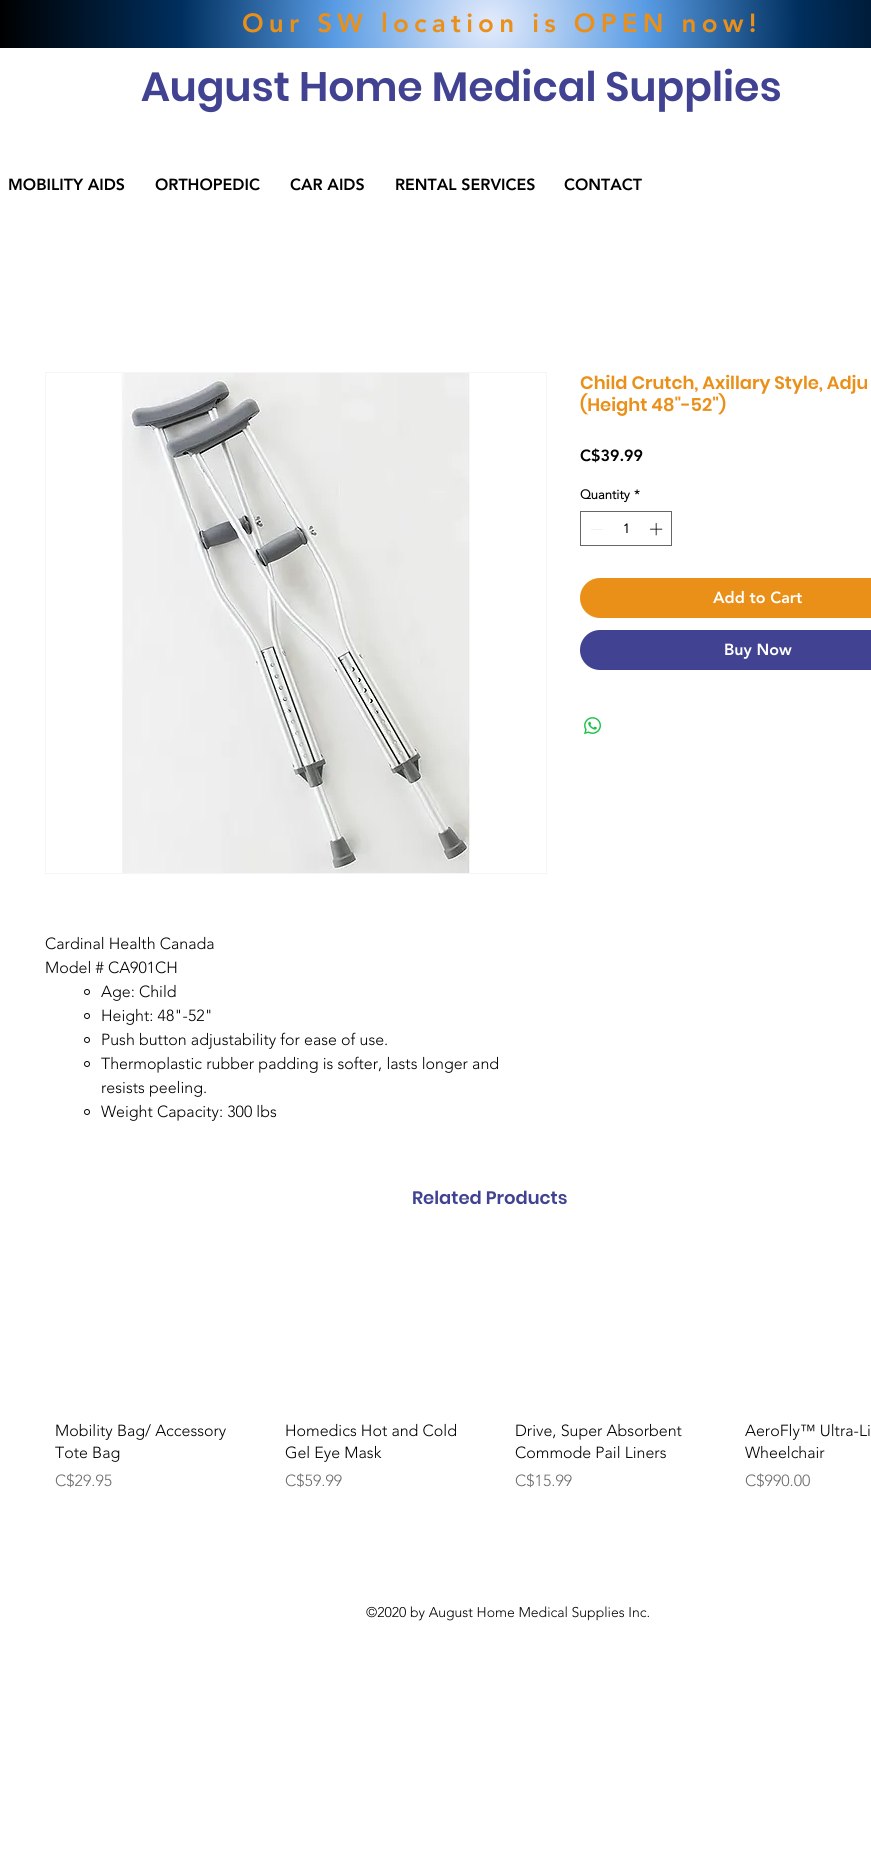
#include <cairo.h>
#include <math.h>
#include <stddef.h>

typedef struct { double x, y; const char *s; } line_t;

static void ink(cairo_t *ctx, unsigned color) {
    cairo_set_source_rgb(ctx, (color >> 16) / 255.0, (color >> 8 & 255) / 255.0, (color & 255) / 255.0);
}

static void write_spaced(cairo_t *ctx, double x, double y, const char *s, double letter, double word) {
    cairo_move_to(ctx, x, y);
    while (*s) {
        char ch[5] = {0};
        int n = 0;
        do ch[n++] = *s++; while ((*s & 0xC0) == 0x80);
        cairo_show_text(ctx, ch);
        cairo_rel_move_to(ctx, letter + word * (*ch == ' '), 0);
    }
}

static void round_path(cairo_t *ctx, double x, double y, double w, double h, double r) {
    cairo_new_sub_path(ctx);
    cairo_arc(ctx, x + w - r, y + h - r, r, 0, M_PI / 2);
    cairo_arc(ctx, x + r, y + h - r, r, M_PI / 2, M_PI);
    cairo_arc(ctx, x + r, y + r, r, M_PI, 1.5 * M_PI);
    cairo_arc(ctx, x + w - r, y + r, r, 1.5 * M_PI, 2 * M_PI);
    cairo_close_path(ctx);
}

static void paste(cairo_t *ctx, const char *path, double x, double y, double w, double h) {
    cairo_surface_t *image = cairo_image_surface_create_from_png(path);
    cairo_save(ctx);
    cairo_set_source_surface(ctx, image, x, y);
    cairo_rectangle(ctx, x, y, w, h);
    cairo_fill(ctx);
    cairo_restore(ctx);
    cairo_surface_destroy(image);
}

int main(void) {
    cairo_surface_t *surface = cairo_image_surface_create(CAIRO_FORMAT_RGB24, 871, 1855);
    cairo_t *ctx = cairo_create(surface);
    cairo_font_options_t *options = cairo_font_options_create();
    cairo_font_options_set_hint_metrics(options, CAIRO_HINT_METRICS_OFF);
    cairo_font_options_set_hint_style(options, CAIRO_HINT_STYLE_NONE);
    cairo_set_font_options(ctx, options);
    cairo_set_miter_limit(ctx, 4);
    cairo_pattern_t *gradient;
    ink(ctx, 0xFFFFFF);
    cairo_paint(ctx);
    gradient = cairo_pattern_create_radial(490, 24, 0, 490, 24, 491);
    cairo_pattern_add_color_stop_rgba(gradient, 0, 0.894, 0.922, 0.988, 1);
    cairo_pattern_add_color_stop_rgba(gradient, 0.32, 0.345, 0.608, 0.89, 1);
    cairo_pattern_add_color_stop_rgba(gradient, 0.63, 0, 0.184, 0.369, 1);
    cairo_pattern_add_color_stop_rgba(gradient, 1, 0, 0, 0, 1);
    cairo_set_source(ctx, gradient);
    cairo_pattern_destroy(gradient);
    cairo_rectangle(ctx, 0, 0, 871, 48);
    cairo_fill(ctx);
    cairo_select_font_face(ctx, "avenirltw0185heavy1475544 Black", CAIRO_FONT_SLANT_NORMAL, CAIRO_FONT_WEIGHT_NORMAL);
    cairo_set_font_size(ctx, 26);
    ink(ctx, 0xEA9019);
    write_spaced(ctx, 242, 32, "Our SW location is OPEN now!", 5.2, 0);
    cairo_select_font_face(ctx, "Poppins SemiBold", CAIRO_FONT_SLANT_NORMAL, CAIRO_FONT_WEIGHT_NORMAL);
    cairo_set_font_size(ctx, 41);
    ink(ctx, 0x414291);
    cairo_move_to(ctx, 141, 101);
    cairo_show_text(ctx, "August Home Medical Supplies");
    cairo_select_font_face(ctx, "avenirltw0185heavy1475544 Black", CAIRO_FONT_SLANT_NORMAL, CAIRO_FONT_WEIGHT_NORMAL);
    cairo_set_font_size(ctx, 16);
    ink(ctx, 0x000000);
    {
        static const line_t items[] = {
            {8, 190, "MOBILITY AIDS"},
            {155, 190, "ORTHOPEDIC"},
            {290, 190, "CAR AIDS"},
            {395, 190, "RENTAL SERVICES"},
            {564, 190, "CONTACT"},
        };
        for (size_t i = 0; i < sizeof items / sizeof *items; i++) {
            cairo_move_to(ctx, items[i].x, items[i].y);
            cairo_show_text(ctx, items[i].s);
        }
    }
    cairo_select_font_face(ctx, "Poppins SemiBold", CAIRO_FONT_SLANT_NORMAL, CAIRO_FONT_WEIGHT_NORMAL);
    cairo_set_font_size(ctx, 18);
    ink(ctx, 0xEA9019);
    cairo_move_to(ctx, 580, 389);
    cairo_show_text(ctx, "Child Crutch, Axillary Style, Adju");
    cairo_move_to(ctx, 580, 411);
    cairo_show_text(ctx, "(Height 48\"-52\")");
    cairo_select_font_face(ctx, "avenirltw0185heavy1475544 Black", CAIRO_FONT_SLANT_NORMAL, CAIRO_FONT_WEIGHT_NORMAL);
    cairo_set_font_size(ctx, 16);
    ink(ctx, 0x000000);
    cairo_move_to(ctx, 580, 461);
    cairo_show_text(ctx, "C$39.99");
    cairo_select_font_face(ctx, "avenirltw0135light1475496", CAIRO_FONT_SLANT_NORMAL, CAIRO_FONT_WEIGHT_BOLD);
    cairo_set_font_size(ctx, 13);
    cairo_move_to(ctx, 580, 499);
    cairo_show_text(ctx, "Quantity");
    cairo_move_to(ctx, 634, 499);
    cairo_show_text(ctx, "*");
    cairo_rectangle(ctx, 580.5, 511.5, 91, 34);
    ink(ctx, 0x666666);
    cairo_set_line_width(ctx, 1);
    cairo_stroke(ctx);
    ink(ctx, 0xE3E3E3);
    cairo_set_fill_rule(ctx, CAIRO_FILL_RULE_EVEN_ODD);
    cairo_new_path(ctx);
    cairo_move_to(ctx, 603, 529);
    cairo_line_to(ctx, 603, 529.5);
    cairo_line_to(ctx, 591, 529.5);
    cairo_line_to(ctx, 591, 529);
    cairo_close_path(ctx);
    cairo_fill(ctx);
    ink(ctx, 0x000000);
    cairo_move_to(ctx, 623, 533);
    cairo_show_text(ctx, "1");
    paste(ctx, "media/1.png", 650, 523, 13, 13);
    ink(ctx, 0xEA9019);
    round_path(ctx, 580, 578, 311, 40, 20);
    cairo_fill(ctx);
    cairo_select_font_face(ctx, "avenirltw0185heavy1475544 Black", CAIRO_FONT_SLANT_NORMAL, CAIRO_FONT_WEIGHT_NORMAL);
    cairo_set_font_size(ctx, 16);
    ink(ctx, 0xFFFFFF);
    cairo_move_to(ctx, 713, 603);
    cairo_show_text(ctx, "Add to Cart");
    ink(ctx, 0x414291);
    round_path(ctx, 580, 630, 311, 40, 20);
    cairo_fill(ctx);
    ink(ctx, 0xFFFFFF);
    cairo_move_to(ctx, 724, 655);
    cairo_show_text(ctx, "Buy Now");
    paste(ctx, "media/2.png", 584, 717, 17, 17);
    cairo_rectangle(ctx, 45.5, 372.5, 501, 501);
    ink(ctx, 0xF5F5F5);
    cairo_stroke(ctx);
    paste(ctx, "media/3.png", 121, 373, 350, 500);
    cairo_select_font_face(ctx, "avenirltw0135light1475496 Light", CAIRO_FONT_SLANT_NORMAL, CAIRO_FONT_WEIGHT_NORMAL);
    ink(ctx, 0x000000);
    cairo_move_to(ctx, 45, 949);
    cairo_show_text(ctx, "Cardinal Health Canada");
    cairo_move_to(ctx, 45, 973);
    cairo_show_text(ctx, "Model # CA901CH");
    cairo_new_path(ctx);
    cairo_arc(ctx, 87, 992, 2.5, 0, 2 * M_PI);
    cairo_stroke(ctx);
    cairo_move_to(ctx, 101, 997);
    cairo_show_text(ctx, "Age: Child");
    cairo_new_path(ctx);
    cairo_arc(ctx, 87, 1016, 2.5, 0, 2 * M_PI);
    cairo_stroke(ctx);
    cairo_move_to(ctx, 101, 1021);
    cairo_show_text(ctx, "Height: 48\"-52\"");
    cairo_new_path(ctx);
    cairo_arc(ctx, 87, 1040, 2.5, 0, 2 * M_PI);
    cairo_stroke(ctx);
    cairo_move_to(ctx, 101, 1045);
    cairo_show_text(ctx, "Push button adjustability for ease of use.");
    cairo_new_path(ctx);
    cairo_arc(ctx, 87, 1064, 2.5, 0, 2 * M_PI);
    cairo_stroke(ctx);
    cairo_move_to(ctx, 101, 1069);
    cairo_show_text(ctx, "Thermoplastic rubber padding is softer, lasts longer and");
    cairo_move_to(ctx, 101, 1093);
    cairo_show_text(ctx, "resists peeling.");
    cairo_new_path(ctx);
    cairo_arc(ctx, 87, 1112, 2.5, 0, 2 * M_PI);
    cairo_stroke(ctx);
    cairo_move_to(ctx, 101, 1117);
    cairo_show_text(ctx, "Weight Capacity: 300 lbs");
    cairo_select_font_face(ctx, "Poppins SemiBold", CAIRO_FONT_SLANT_NORMAL, CAIRO_FONT_WEIGHT_NORMAL);
    cairo_set_font_size(ctx, 18);
    ink(ctx, 0x414291);
    cairo_move_to(ctx, 412, 1204);
    cairo_show_text(ctx, "Related Products");
    cairo_select_font_face(ctx, "avenirltw0135light1475496 Light", CAIRO_FONT_SLANT_NORMAL, CAIRO_FONT_WEIGHT_NORMAL);
    cairo_set_font_size(ctx, 16);
    ink(ctx, 0x000000);
    cairo_move_to(ctx, 55, 1436);
    cairo_show_text(ctx, "Mobility Bag/ Accessory");
    cairo_move_to(ctx, 55, 1458);
    cairo_show_text(ctx, "Tote Bag");
    ink(ctx, 0x6B6B6A);
    cairo_move_to(ctx, 55, 1486);
    cairo_show_text(ctx, "C$29.95");
    ink(ctx, 0x000000);
    cairo_move_to(ctx, 285, 1436);
    cairo_show_text(ctx, "Homedics Hot and Cold");
    cairo_move_to(ctx, 285, 1458);
    cairo_show_text(ctx, "Gel Eye Mask");
    ink(ctx, 0x6B6B6A);
    cairo_move_to(ctx, 285, 1486);
    cairo_show_text(ctx, "C$59.99");
    ink(ctx, 0x000000);
    cairo_move_to(ctx, 515, 1436);
    cairo_show_text(ctx, "Drive, Super Absorbent");
    cairo_move_to(ctx, 515, 1458);
    cairo_show_text(ctx, "Commode Pail Liners");
    ink(ctx, 0x6B6B6A);
    cairo_move_to(ctx, 515, 1486);
    cairo_show_text(ctx, "C$15.99");
    ink(ctx, 0x000000);
    cairo_move_to(ctx, 745, 1436);
    cairo_show_text(ctx, "AeroFly™ Ultra-Li");
    cairo_move_to(ctx, 745, 1458);
    cairo_show_text(ctx, "Wheelchair");
    ink(ctx, 0x6B6B6A);
    cairo_move_to(ctx, 745, 1486);
    cairo_show_text(ctx, "C$990.00");
    cairo_set_font_size(ctx, 14);
    ink(ctx, 0x000000);
    cairo_move_to(ctx, 366, 1617);
    cairo_show_text(ctx, "©2020 by August Home Medical Supplies Inc.");
    cairo_surface_write_to_png(surface, "image.png");
    cairo_font_options_destroy(options);
    cairo_destroy(ctx);
    cairo_surface_destroy(surface);
    return 0;
}
